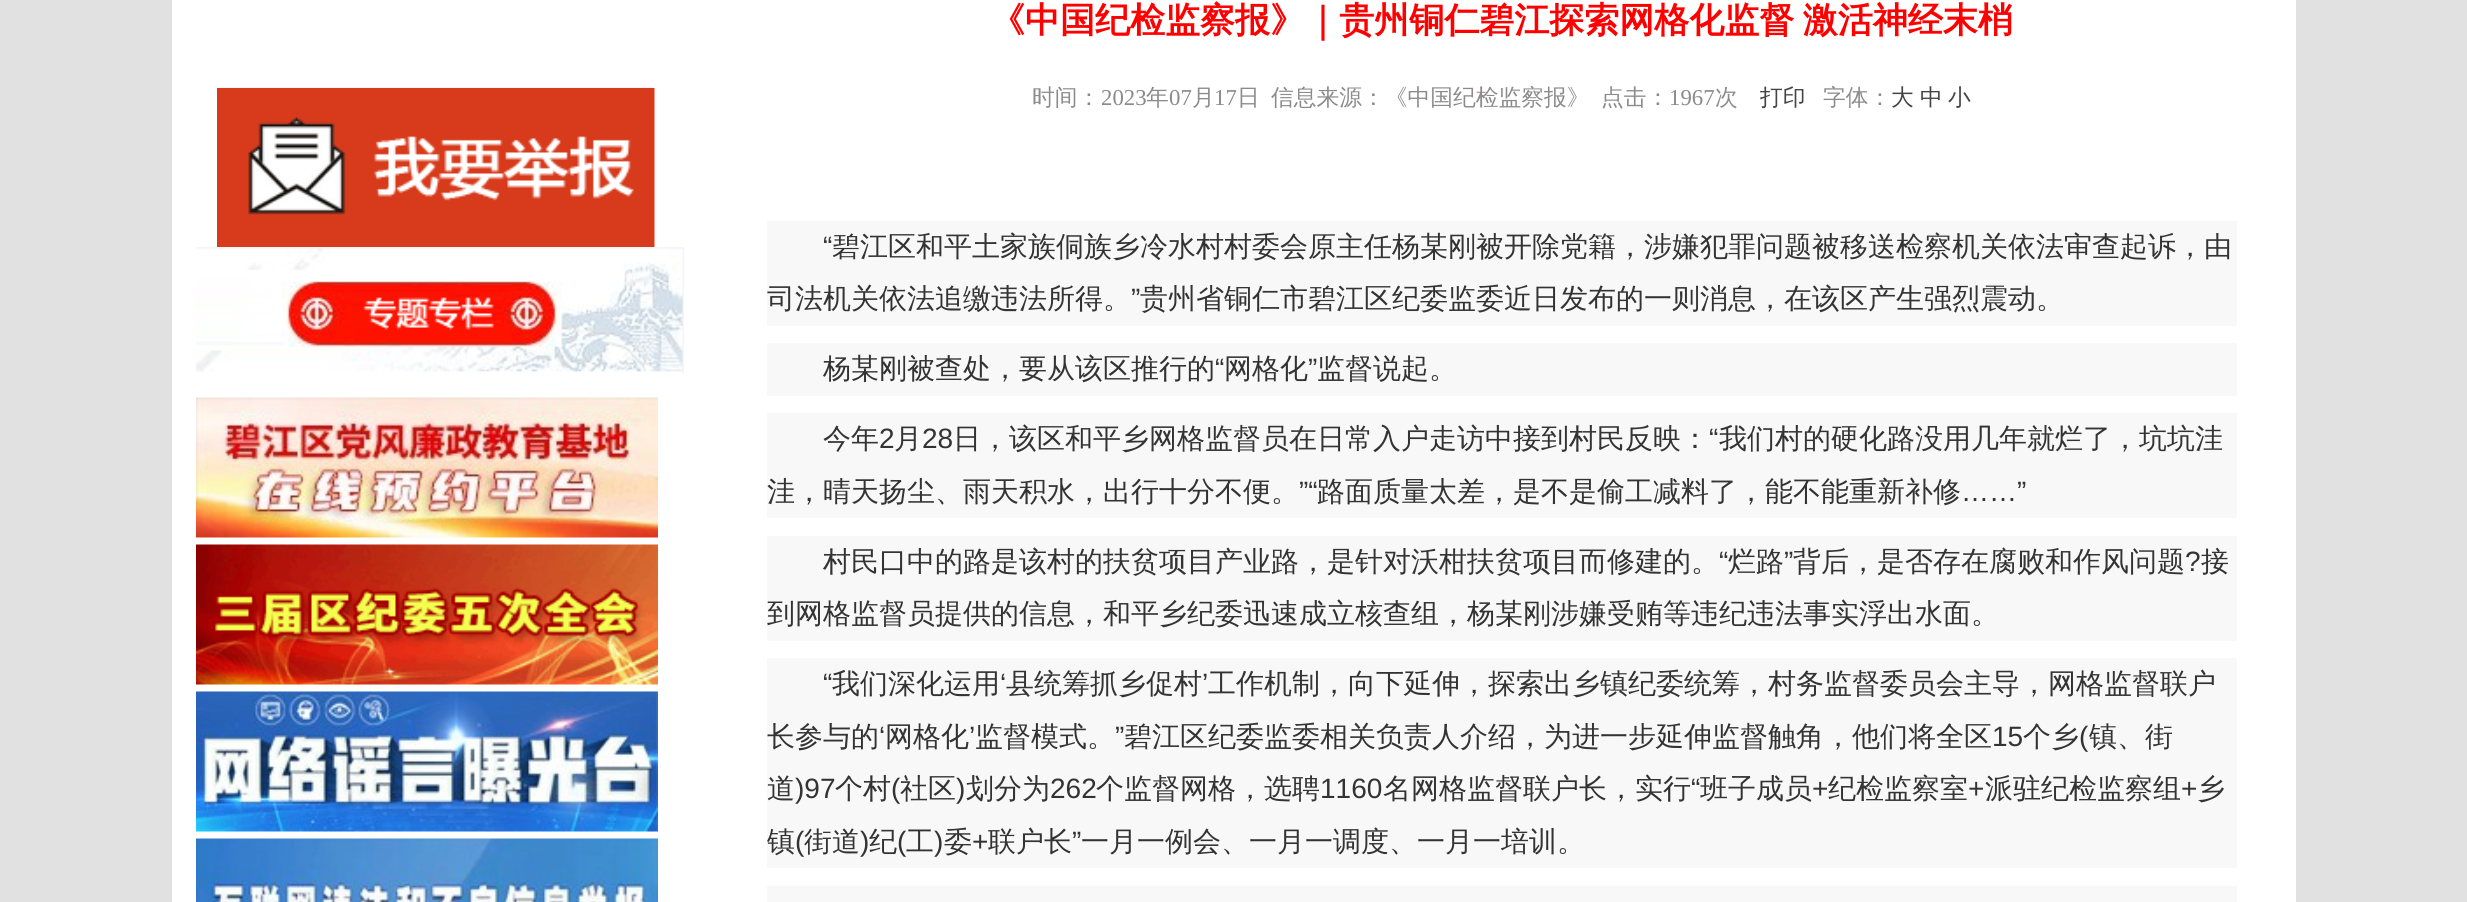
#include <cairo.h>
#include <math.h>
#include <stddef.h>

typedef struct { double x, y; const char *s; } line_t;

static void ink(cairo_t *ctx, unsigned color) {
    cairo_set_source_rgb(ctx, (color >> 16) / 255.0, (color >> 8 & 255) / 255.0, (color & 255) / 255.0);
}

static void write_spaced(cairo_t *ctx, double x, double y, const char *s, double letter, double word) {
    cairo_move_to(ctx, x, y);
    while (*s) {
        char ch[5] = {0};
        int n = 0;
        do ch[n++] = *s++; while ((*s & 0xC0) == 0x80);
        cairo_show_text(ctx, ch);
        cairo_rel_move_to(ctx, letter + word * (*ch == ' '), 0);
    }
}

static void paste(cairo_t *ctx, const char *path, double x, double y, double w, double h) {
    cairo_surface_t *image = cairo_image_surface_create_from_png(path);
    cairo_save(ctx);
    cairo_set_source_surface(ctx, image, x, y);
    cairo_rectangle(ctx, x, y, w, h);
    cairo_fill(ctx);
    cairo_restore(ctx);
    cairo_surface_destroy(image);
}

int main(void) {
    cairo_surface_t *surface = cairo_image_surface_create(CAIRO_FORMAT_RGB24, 2467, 902);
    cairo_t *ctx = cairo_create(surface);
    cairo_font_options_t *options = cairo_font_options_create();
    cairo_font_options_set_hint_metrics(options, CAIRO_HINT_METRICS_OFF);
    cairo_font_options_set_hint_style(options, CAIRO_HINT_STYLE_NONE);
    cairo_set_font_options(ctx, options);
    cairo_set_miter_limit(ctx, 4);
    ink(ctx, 0xE1E1E1);
    cairo_paint(ctx);
    ink(ctx, 0xFFFFFF);
    cairo_rectangle(ctx, 172, 0, 2124, 902);
    cairo_fill(ctx);
    paste(ctx, "media/1.png", 217, 87, 438, 160);
    paste(ctx, "media/2.png", 196, 247, 488, 126);
    paste(ctx, "media/3.png", 196, 397, 462, 141);
    paste(ctx, "media/4.png", 196, 544, 462, 141);
    paste(ctx, "media/5.png", 196, 691, 462, 141);
    paste(ctx, "media/6.png", 196, 838, 462, 64);
    cairo_select_font_face(ctx, "WenQuanYi Zen Hei", CAIRO_FONT_SLANT_NORMAL, CAIRO_FONT_WEIGHT_BOLD);
    cairo_set_font_size(ctx, 35);
    ink(ctx, 0xFF0000);
    write_spaced(ctx, 990, 32, "《中国纪检监察报》｜贵州铜仁碧江探索网格化监督 激活神经末梢", 0, -2);
    cairo_select_font_face(ctx, "WenQuanYi Zen Hei Medium", CAIRO_FONT_SLANT_NORMAL, CAIRO_FONT_WEIGHT_NORMAL);
    cairo_set_font_size(ctx, 22.75);
    ink(ctx, 0x8C8A8A);
    cairo_move_to(ctx, 1032, 105);
    cairo_show_text(ctx, "时间：");
    cairo_select_font_face(ctx, "Liberation Serif", CAIRO_FONT_SLANT_NORMAL, CAIRO_FONT_WEIGHT_NORMAL);
    cairo_move_to(ctx, 1101, 105);
    cairo_show_text(ctx, "2023");
    cairo_select_font_face(ctx, "WenQuanYi Zen Hei Medium", CAIRO_FONT_SLANT_NORMAL, CAIRO_FONT_WEIGHT_NORMAL);
    cairo_move_to(ctx, 1146, 105);
    cairo_show_text(ctx, "年");
    cairo_select_font_face(ctx, "Liberation Serif", CAIRO_FONT_SLANT_NORMAL, CAIRO_FONT_WEIGHT_NORMAL);
    cairo_move_to(ctx, 1169, 105);
    cairo_show_text(ctx, "07");
    cairo_select_font_face(ctx, "WenQuanYi Zen Hei Medium", CAIRO_FONT_SLANT_NORMAL, CAIRO_FONT_WEIGHT_NORMAL);
    cairo_move_to(ctx, 1192, 105);
    cairo_show_text(ctx, "月");
    cairo_select_font_face(ctx, "Liberation Serif", CAIRO_FONT_SLANT_NORMAL, CAIRO_FONT_WEIGHT_NORMAL);
    cairo_move_to(ctx, 1214, 105);
    cairo_show_text(ctx, "17");
    cairo_select_font_face(ctx, "WenQuanYi Zen Hei Medium", CAIRO_FONT_SLANT_NORMAL, CAIRO_FONT_WEIGHT_NORMAL);
    {
        static const line_t items[] = {
            {1237, 105, "日"},
            {1271, 105, "信息来源：《中国纪检监察报》"},
            {1601, 105, "点击："},
        };
        for (size_t i = 0; i < sizeof items / sizeof *items; i++) {
            cairo_move_to(ctx, items[i].x, items[i].y);
            cairo_show_text(ctx, items[i].s);
        }
    }
    cairo_select_font_face(ctx, "Liberation Serif", CAIRO_FONT_SLANT_NORMAL, CAIRO_FONT_WEIGHT_NORMAL);
    cairo_move_to(ctx, 1669, 105);
    cairo_show_text(ctx, "1967");
    cairo_select_font_face(ctx, "WenQuanYi Zen Hei Medium", CAIRO_FONT_SLANT_NORMAL, CAIRO_FONT_WEIGHT_NORMAL);
    cairo_move_to(ctx, 1715, 105);
    cairo_show_text(ctx, "次");
    ink(ctx, 0x444444);
    cairo_move_to(ctx, 1760, 105);
    cairo_show_text(ctx, "打印");
    ink(ctx, 0x8C8A8A);
    cairo_move_to(ctx, 1823, 105);
    cairo_show_text(ctx, "字体：");
    ink(ctx, 0x444444);
    {
        static const line_t items[] = {
            {1891, 105, "大"},
            {1920, 105, "中"},
            {1948, 105, "小"},
        };
        for (size_t i = 0; i < sizeof items / sizeof *items; i++) {
            cairo_move_to(ctx, items[i].x, items[i].y);
            cairo_show_text(ctx, items[i].s);
        }
    }
    ink(ctx, 0xF8F8F8);
    cairo_rectangle(ctx, 767, 221, 1470, 105);
    cairo_fill(ctx);
    cairo_select_font_face(ctx, "Liberation Sans", CAIRO_FONT_SLANT_NORMAL, CAIRO_FONT_WEIGHT_NORMAL);
    cairo_set_font_size(ctx, 28);
    ink(ctx, 0x333333);
    cairo_move_to(ctx, 823, 256);
    cairo_show_text(ctx, "“");
    cairo_select_font_face(ctx, "WenQuanYi Zen Hei Medium", CAIRO_FONT_SLANT_NORMAL, CAIRO_FONT_WEIGHT_NORMAL);
    cairo_move_to(ctx, 832, 256);
    cairo_show_text(ctx, "碧江区和平土家族侗族乡冷水村村委会原主任杨某刚被开除党籍，涉嫌犯罪问题被移送检察机关依法审查起诉，由");
    cairo_move_to(ctx, 767, 308);
    cairo_show_text(ctx, "司法机关依法追缴违法所得。");
    cairo_select_font_face(ctx, "Liberation Sans", CAIRO_FONT_SLANT_NORMAL, CAIRO_FONT_WEIGHT_NORMAL);
    cairo_move_to(ctx, 1131, 308);
    cairo_show_text(ctx, "”");
    cairo_select_font_face(ctx, "WenQuanYi Zen Hei Medium", CAIRO_FONT_SLANT_NORMAL, CAIRO_FONT_WEIGHT_NORMAL);
    cairo_move_to(ctx, 1140, 308);
    cairo_show_text(ctx, "贵州省铜仁市碧江区纪委监委近日发布的一则消息，在该区产生强烈震动。");
    ink(ctx, 0xF8F8F8);
    cairo_rectangle(ctx, 767, 343, 1470, 53);
    cairo_fill(ctx);
    ink(ctx, 0x333333);
    cairo_move_to(ctx, 823, 378);
    cairo_show_text(ctx, "杨某刚被查处，要从该区推行的");
    cairo_select_font_face(ctx, "Liberation Sans", CAIRO_FONT_SLANT_NORMAL, CAIRO_FONT_WEIGHT_NORMAL);
    cairo_move_to(ctx, 1215, 378);
    cairo_show_text(ctx, "“");
    cairo_select_font_face(ctx, "WenQuanYi Zen Hei Medium", CAIRO_FONT_SLANT_NORMAL, CAIRO_FONT_WEIGHT_NORMAL);
    cairo_move_to(ctx, 1224, 378);
    cairo_show_text(ctx, "网格化");
    cairo_select_font_face(ctx, "Liberation Sans", CAIRO_FONT_SLANT_NORMAL, CAIRO_FONT_WEIGHT_NORMAL);
    cairo_move_to(ctx, 1308, 378);
    cairo_show_text(ctx, "”");
    cairo_select_font_face(ctx, "WenQuanYi Zen Hei Medium", CAIRO_FONT_SLANT_NORMAL, CAIRO_FONT_WEIGHT_NORMAL);
    cairo_move_to(ctx, 1317, 378);
    cairo_show_text(ctx, "监督说起。");
    ink(ctx, 0xF8F8F8);
    cairo_rectangle(ctx, 767, 413, 1470, 105);
    cairo_fill(ctx);
    ink(ctx, 0x333333);
    cairo_move_to(ctx, 823, 448);
    cairo_show_text(ctx, "今年");
    cairo_select_font_face(ctx, "Liberation Sans", CAIRO_FONT_SLANT_NORMAL, CAIRO_FONT_WEIGHT_NORMAL);
    cairo_move_to(ctx, 879, 448);
    cairo_show_text(ctx, "2");
    cairo_select_font_face(ctx, "WenQuanYi Zen Hei Medium", CAIRO_FONT_SLANT_NORMAL, CAIRO_FONT_WEIGHT_NORMAL);
    cairo_move_to(ctx, 894, 448);
    cairo_show_text(ctx, "月");
    cairo_select_font_face(ctx, "Liberation Sans", CAIRO_FONT_SLANT_NORMAL, CAIRO_FONT_WEIGHT_NORMAL);
    cairo_move_to(ctx, 922, 448);
    cairo_show_text(ctx, "28");
    cairo_select_font_face(ctx, "WenQuanYi Zen Hei Medium", CAIRO_FONT_SLANT_NORMAL, CAIRO_FONT_WEIGHT_NORMAL);
    cairo_move_to(ctx, 953, 448);
    cairo_show_text(ctx, "日，该区和平乡网格监督员在日常入户走访中接到村民反映：");
    cairo_select_font_face(ctx, "Liberation Sans", CAIRO_FONT_SLANT_NORMAL, CAIRO_FONT_WEIGHT_NORMAL);
    cairo_move_to(ctx, 1709, 448);
    cairo_show_text(ctx, "“");
    cairo_select_font_face(ctx, "WenQuanYi Zen Hei Medium", CAIRO_FONT_SLANT_NORMAL, CAIRO_FONT_WEIGHT_NORMAL);
    cairo_move_to(ctx, 1719, 448);
    cairo_show_text(ctx, "我们村的硬化路没用几年就烂了，坑坑洼");
    cairo_move_to(ctx, 767, 501);
    cairo_show_text(ctx, "洼，晴天扬尘、雨天积水，出行十分不便。");
    cairo_select_font_face(ctx, "Liberation Sans", CAIRO_FONT_SLANT_NORMAL, CAIRO_FONT_WEIGHT_NORMAL);
    cairo_move_to(ctx, 1299, 501);
    cairo_show_text(ctx, "”“");
    cairo_select_font_face(ctx, "WenQuanYi Zen Hei Medium", CAIRO_FONT_SLANT_NORMAL, CAIRO_FONT_WEIGHT_NORMAL);
    cairo_move_to(ctx, 1317, 501);
    cairo_show_text(ctx, "路面质量太差，是不是偷工减料了，能不能重新补修");
    cairo_select_font_face(ctx, "Liberation Sans", CAIRO_FONT_SLANT_NORMAL, CAIRO_FONT_WEIGHT_NORMAL);
    cairo_move_to(ctx, 1961, 501);
    cairo_show_text(ctx, "……”");
    ink(ctx, 0xF8F8F8);
    cairo_rectangle(ctx, 767, 536, 1470, 105);
    cairo_fill(ctx);
    cairo_select_font_face(ctx, "WenQuanYi Zen Hei Medium", CAIRO_FONT_SLANT_NORMAL, CAIRO_FONT_WEIGHT_NORMAL);
    ink(ctx, 0x333333);
    cairo_move_to(ctx, 823, 571);
    cairo_show_text(ctx, "村民口中的路是该村的扶贫项目产业路，是针对沃柑扶贫项目而修建的。");
    cairo_select_font_face(ctx, "Liberation Sans", CAIRO_FONT_SLANT_NORMAL, CAIRO_FONT_WEIGHT_NORMAL);
    cairo_move_to(ctx, 1719, 571);
    cairo_show_text(ctx, "“");
    cairo_select_font_face(ctx, "WenQuanYi Zen Hei Medium", CAIRO_FONT_SLANT_NORMAL, CAIRO_FONT_WEIGHT_NORMAL);
    cairo_move_to(ctx, 1728, 571);
    cairo_show_text(ctx, "烂路");
    cairo_select_font_face(ctx, "Liberation Sans", CAIRO_FONT_SLANT_NORMAL, CAIRO_FONT_WEIGHT_NORMAL);
    cairo_move_to(ctx, 1784, 571);
    cairo_show_text(ctx, "”");
    cairo_select_font_face(ctx, "WenQuanYi Zen Hei Medium", CAIRO_FONT_SLANT_NORMAL, CAIRO_FONT_WEIGHT_NORMAL);
    cairo_move_to(ctx, 1793, 571);
    cairo_show_text(ctx, "背后，是否存在腐败和作风问题");
    cairo_select_font_face(ctx, "Liberation Sans", CAIRO_FONT_SLANT_NORMAL, CAIRO_FONT_WEIGHT_NORMAL);
    cairo_move_to(ctx, 2185, 571);
    cairo_show_text(ctx, "?");
    cairo_select_font_face(ctx, "WenQuanYi Zen Hei Medium", CAIRO_FONT_SLANT_NORMAL, CAIRO_FONT_WEIGHT_NORMAL);
    cairo_move_to(ctx, 2201, 571);
    cairo_show_text(ctx, "接");
    cairo_move_to(ctx, 767, 623);
    cairo_show_text(ctx, "到网格监督员提供的信息，和平乡纪委迅速成立核查组，杨某刚涉嫌受贿等违纪违法事实浮出水面。");
    ink(ctx, 0xF8F8F8);
    cairo_rectangle(ctx, 767, 658, 1470, 210);
    cairo_fill(ctx);
    cairo_select_font_face(ctx, "Liberation Sans", CAIRO_FONT_SLANT_NORMAL, CAIRO_FONT_WEIGHT_NORMAL);
    ink(ctx, 0x333333);
    cairo_move_to(ctx, 823, 693);
    cairo_show_text(ctx, "“");
    cairo_select_font_face(ctx, "WenQuanYi Zen Hei Medium", CAIRO_FONT_SLANT_NORMAL, CAIRO_FONT_WEIGHT_NORMAL);
    cairo_move_to(ctx, 832, 693);
    cairo_show_text(ctx, "我们深化运用");
    cairo_select_font_face(ctx, "Liberation Sans", CAIRO_FONT_SLANT_NORMAL, CAIRO_FONT_WEIGHT_NORMAL);
    cairo_move_to(ctx, 1000, 693);
    cairo_show_text(ctx, "‘");
    cairo_select_font_face(ctx, "WenQuanYi Zen Hei Medium", CAIRO_FONT_SLANT_NORMAL, CAIRO_FONT_WEIGHT_NORMAL);
    cairo_move_to(ctx, 1006, 693);
    cairo_show_text(ctx, "县统筹抓乡促村");
    cairo_select_font_face(ctx, "Liberation Sans", CAIRO_FONT_SLANT_NORMAL, CAIRO_FONT_WEIGHT_NORMAL);
    cairo_move_to(ctx, 1202, 693);
    cairo_show_text(ctx, "’");
    cairo_select_font_face(ctx, "WenQuanYi Zen Hei Medium", CAIRO_FONT_SLANT_NORMAL, CAIRO_FONT_WEIGHT_NORMAL);
    cairo_move_to(ctx, 1208, 693);
    cairo_show_text(ctx, "工作机制，向下延伸，探索出乡镇纪委统筹，村务监督委员会主导，网格监督联户");
    cairo_move_to(ctx, 767, 746);
    cairo_show_text(ctx, "长参与的");
    cairo_select_font_face(ctx, "Liberation Sans", CAIRO_FONT_SLANT_NORMAL, CAIRO_FONT_WEIGHT_NORMAL);
    cairo_move_to(ctx, 879, 746);
    cairo_show_text(ctx, "‘");
    cairo_select_font_face(ctx, "WenQuanYi Zen Hei Medium", CAIRO_FONT_SLANT_NORMAL, CAIRO_FONT_WEIGHT_NORMAL);
    cairo_move_to(ctx, 885, 746);
    cairo_show_text(ctx, "网格化");
    cairo_select_font_face(ctx, "Liberation Sans", CAIRO_FONT_SLANT_NORMAL, CAIRO_FONT_WEIGHT_NORMAL);
    cairo_move_to(ctx, 969, 746);
    cairo_show_text(ctx, "’");
    cairo_select_font_face(ctx, "WenQuanYi Zen Hei Medium", CAIRO_FONT_SLANT_NORMAL, CAIRO_FONT_WEIGHT_NORMAL);
    cairo_move_to(ctx, 975, 746);
    cairo_show_text(ctx, "监督模式。");
    cairo_select_font_face(ctx, "Liberation Sans", CAIRO_FONT_SLANT_NORMAL, CAIRO_FONT_WEIGHT_NORMAL);
    cairo_move_to(ctx, 1115, 746);
    cairo_show_text(ctx, "”");
    cairo_select_font_face(ctx, "WenQuanYi Zen Hei Medium", CAIRO_FONT_SLANT_NORMAL, CAIRO_FONT_WEIGHT_NORMAL);
    cairo_move_to(ctx, 1124, 746);
    cairo_show_text(ctx, "碧江区纪委监委相关负责人介绍，为进一步延伸监督触角，他们将全区");
    cairo_select_font_face(ctx, "Liberation Sans", CAIRO_FONT_SLANT_NORMAL, CAIRO_FONT_WEIGHT_NORMAL);
    cairo_move_to(ctx, 1992, 746);
    cairo_show_text(ctx, "15");
    cairo_select_font_face(ctx, "WenQuanYi Zen Hei Medium", CAIRO_FONT_SLANT_NORMAL, CAIRO_FONT_WEIGHT_NORMAL);
    cairo_move_to(ctx, 2023, 746);
    cairo_show_text(ctx, "个乡");
    cairo_select_font_face(ctx, "Liberation Sans", CAIRO_FONT_SLANT_NORMAL, CAIRO_FONT_WEIGHT_NORMAL);
    cairo_move_to(ctx, 2079, 746);
    cairo_show_text(ctx, "(");
    cairo_select_font_face(ctx, "WenQuanYi Zen Hei Medium", CAIRO_FONT_SLANT_NORMAL, CAIRO_FONT_WEIGHT_NORMAL);
    cairo_move_to(ctx, 2089, 746);
    cairo_show_text(ctx, "镇、街");
    cairo_move_to(ctx, 767, 798);
    cairo_show_text(ctx, "道");
    cairo_select_font_face(ctx, "Liberation Sans", CAIRO_FONT_SLANT_NORMAL, CAIRO_FONT_WEIGHT_NORMAL);
    cairo_move_to(ctx, 795, 798);
    cairo_show_text(ctx, ")97");
    cairo_select_font_face(ctx, "WenQuanYi Zen Hei Medium", CAIRO_FONT_SLANT_NORMAL, CAIRO_FONT_WEIGHT_NORMAL);
    cairo_move_to(ctx, 835, 798);
    cairo_show_text(ctx, "个村");
    cairo_select_font_face(ctx, "Liberation Sans", CAIRO_FONT_SLANT_NORMAL, CAIRO_FONT_WEIGHT_NORMAL);
    cairo_move_to(ctx, 891, 798);
    cairo_show_text(ctx, "(");
    cairo_select_font_face(ctx, "WenQuanYi Zen Hei Medium", CAIRO_FONT_SLANT_NORMAL, CAIRO_FONT_WEIGHT_NORMAL);
    cairo_move_to(ctx, 900, 798);
    cairo_show_text(ctx, "社区");
    cairo_select_font_face(ctx, "Liberation Sans", CAIRO_FONT_SLANT_NORMAL, CAIRO_FONT_WEIGHT_NORMAL);
    cairo_move_to(ctx, 956, 798);
    cairo_show_text(ctx, ")");
    cairo_select_font_face(ctx, "WenQuanYi Zen Hei Medium", CAIRO_FONT_SLANT_NORMAL, CAIRO_FONT_WEIGHT_NORMAL);
    cairo_move_to(ctx, 966, 798);
    cairo_show_text(ctx, "划分为");
    cairo_select_font_face(ctx, "Liberation Sans", CAIRO_FONT_SLANT_NORMAL, CAIRO_FONT_WEIGHT_NORMAL);
    cairo_move_to(ctx, 1050, 798);
    cairo_show_text(ctx, "262");
    cairo_select_font_face(ctx, "WenQuanYi Zen Hei Medium", CAIRO_FONT_SLANT_NORMAL, CAIRO_FONT_WEIGHT_NORMAL);
    cairo_move_to(ctx, 1096, 798);
    cairo_show_text(ctx, "个监督网格，选聘");
    cairo_select_font_face(ctx, "Liberation Sans", CAIRO_FONT_SLANT_NORMAL, CAIRO_FONT_WEIGHT_NORMAL);
    cairo_move_to(ctx, 1320, 798);
    cairo_show_text(ctx, "1160");
    cairo_select_font_face(ctx, "WenQuanYi Zen Hei Medium", CAIRO_FONT_SLANT_NORMAL, CAIRO_FONT_WEIGHT_NORMAL);
    cairo_move_to(ctx, 1383, 798);
    cairo_show_text(ctx, "名网格监督联户长，实行");
    cairo_select_font_face(ctx, "Liberation Sans", CAIRO_FONT_SLANT_NORMAL, CAIRO_FONT_WEIGHT_NORMAL);
    cairo_move_to(ctx, 1691, 798);
    cairo_show_text(ctx, "“");
    cairo_select_font_face(ctx, "WenQuanYi Zen Hei Medium", CAIRO_FONT_SLANT_NORMAL, CAIRO_FONT_WEIGHT_NORMAL);
    cairo_move_to(ctx, 1700, 798);
    cairo_show_text(ctx, "班子成员");
    cairo_select_font_face(ctx, "Liberation Sans", CAIRO_FONT_SLANT_NORMAL, CAIRO_FONT_WEIGHT_NORMAL);
    cairo_move_to(ctx, 1812, 798);
    cairo_show_text(ctx, "+");
    cairo_select_font_face(ctx, "WenQuanYi Zen Hei Medium", CAIRO_FONT_SLANT_NORMAL, CAIRO_FONT_WEIGHT_NORMAL);
    cairo_move_to(ctx, 1828, 798);
    cairo_show_text(ctx, "纪检监察室");
    cairo_select_font_face(ctx, "Liberation Sans", CAIRO_FONT_SLANT_NORMAL, CAIRO_FONT_WEIGHT_NORMAL);
    cairo_move_to(ctx, 1968, 798);
    cairo_show_text(ctx, "+");
    cairo_select_font_face(ctx, "WenQuanYi Zen Hei Medium", CAIRO_FONT_SLANT_NORMAL, CAIRO_FONT_WEIGHT_NORMAL);
    cairo_move_to(ctx, 1985, 798);
    cairo_show_text(ctx, "派驻纪检监察组");
    cairo_select_font_face(ctx, "Liberation Sans", CAIRO_FONT_SLANT_NORMAL, CAIRO_FONT_WEIGHT_NORMAL);
    cairo_move_to(ctx, 2181, 798);
    cairo_show_text(ctx, "+");
    cairo_select_font_face(ctx, "WenQuanYi Zen Hei Medium", CAIRO_FONT_SLANT_NORMAL, CAIRO_FONT_WEIGHT_NORMAL);
    cairo_move_to(ctx, 2197, 798);
    cairo_show_text(ctx, "乡");
    cairo_move_to(ctx, 767, 851);
    cairo_show_text(ctx, "镇");
    cairo_select_font_face(ctx, "Liberation Sans", CAIRO_FONT_SLANT_NORMAL, CAIRO_FONT_WEIGHT_NORMAL);
    cairo_move_to(ctx, 795, 851);
    cairo_show_text(ctx, "(");
    cairo_select_font_face(ctx, "WenQuanYi Zen Hei Medium", CAIRO_FONT_SLANT_NORMAL, CAIRO_FONT_WEIGHT_NORMAL);
    cairo_move_to(ctx, 804, 851);
    cairo_show_text(ctx, "街道");
    cairo_select_font_face(ctx, "Liberation Sans", CAIRO_FONT_SLANT_NORMAL, CAIRO_FONT_WEIGHT_NORMAL);
    cairo_move_to(ctx, 860, 851);
    cairo_show_text(ctx, ")");
    cairo_select_font_face(ctx, "WenQuanYi Zen Hei Medium", CAIRO_FONT_SLANT_NORMAL, CAIRO_FONT_WEIGHT_NORMAL);
    cairo_move_to(ctx, 869, 851);
    cairo_show_text(ctx, "纪");
    cairo_select_font_face(ctx, "Liberation Sans", CAIRO_FONT_SLANT_NORMAL, CAIRO_FONT_WEIGHT_NORMAL);
    cairo_move_to(ctx, 897, 851);
    cairo_show_text(ctx, "(");
    cairo_select_font_face(ctx, "WenQuanYi Zen Hei Medium", CAIRO_FONT_SLANT_NORMAL, CAIRO_FONT_WEIGHT_NORMAL);
    cairo_move_to(ctx, 906, 851);
    cairo_show_text(ctx, "工");
    cairo_select_font_face(ctx, "Liberation Sans", CAIRO_FONT_SLANT_NORMAL, CAIRO_FONT_WEIGHT_NORMAL);
    cairo_move_to(ctx, 934, 851);
    cairo_show_text(ctx, ")");
    cairo_select_font_face(ctx, "WenQuanYi Zen Hei Medium", CAIRO_FONT_SLANT_NORMAL, CAIRO_FONT_WEIGHT_NORMAL);
    cairo_move_to(ctx, 944, 851);
    cairo_show_text(ctx, "委");
    cairo_select_font_face(ctx, "Liberation Sans", CAIRO_FONT_SLANT_NORMAL, CAIRO_FONT_WEIGHT_NORMAL);
    cairo_move_to(ctx, 972, 851);
    cairo_show_text(ctx, "+");
    cairo_select_font_face(ctx, "WenQuanYi Zen Hei Medium", CAIRO_FONT_SLANT_NORMAL, CAIRO_FONT_WEIGHT_NORMAL);
    cairo_move_to(ctx, 988, 851);
    cairo_show_text(ctx, "联户长");
    cairo_select_font_face(ctx, "Liberation Sans", CAIRO_FONT_SLANT_NORMAL, CAIRO_FONT_WEIGHT_NORMAL);
    cairo_move_to(ctx, 1072, 851);
    cairo_show_text(ctx, "”");
    cairo_select_font_face(ctx, "WenQuanYi Zen Hei Medium", CAIRO_FONT_SLANT_NORMAL, CAIRO_FONT_WEIGHT_NORMAL);
    cairo_move_to(ctx, 1081, 851);
    cairo_show_text(ctx, "一月一例会、一月一调度、一月一培训。");
    ink(ctx, 0xF8F8F8);
    cairo_rectangle(ctx, 767, 886, 1470, 16);
    cairo_fill(ctx);
    cairo_surface_write_to_png(surface, "image.png");
    cairo_font_options_destroy(options);
    cairo_destroy(ctx);
    cairo_surface_destroy(surface);
    return 0;
}
